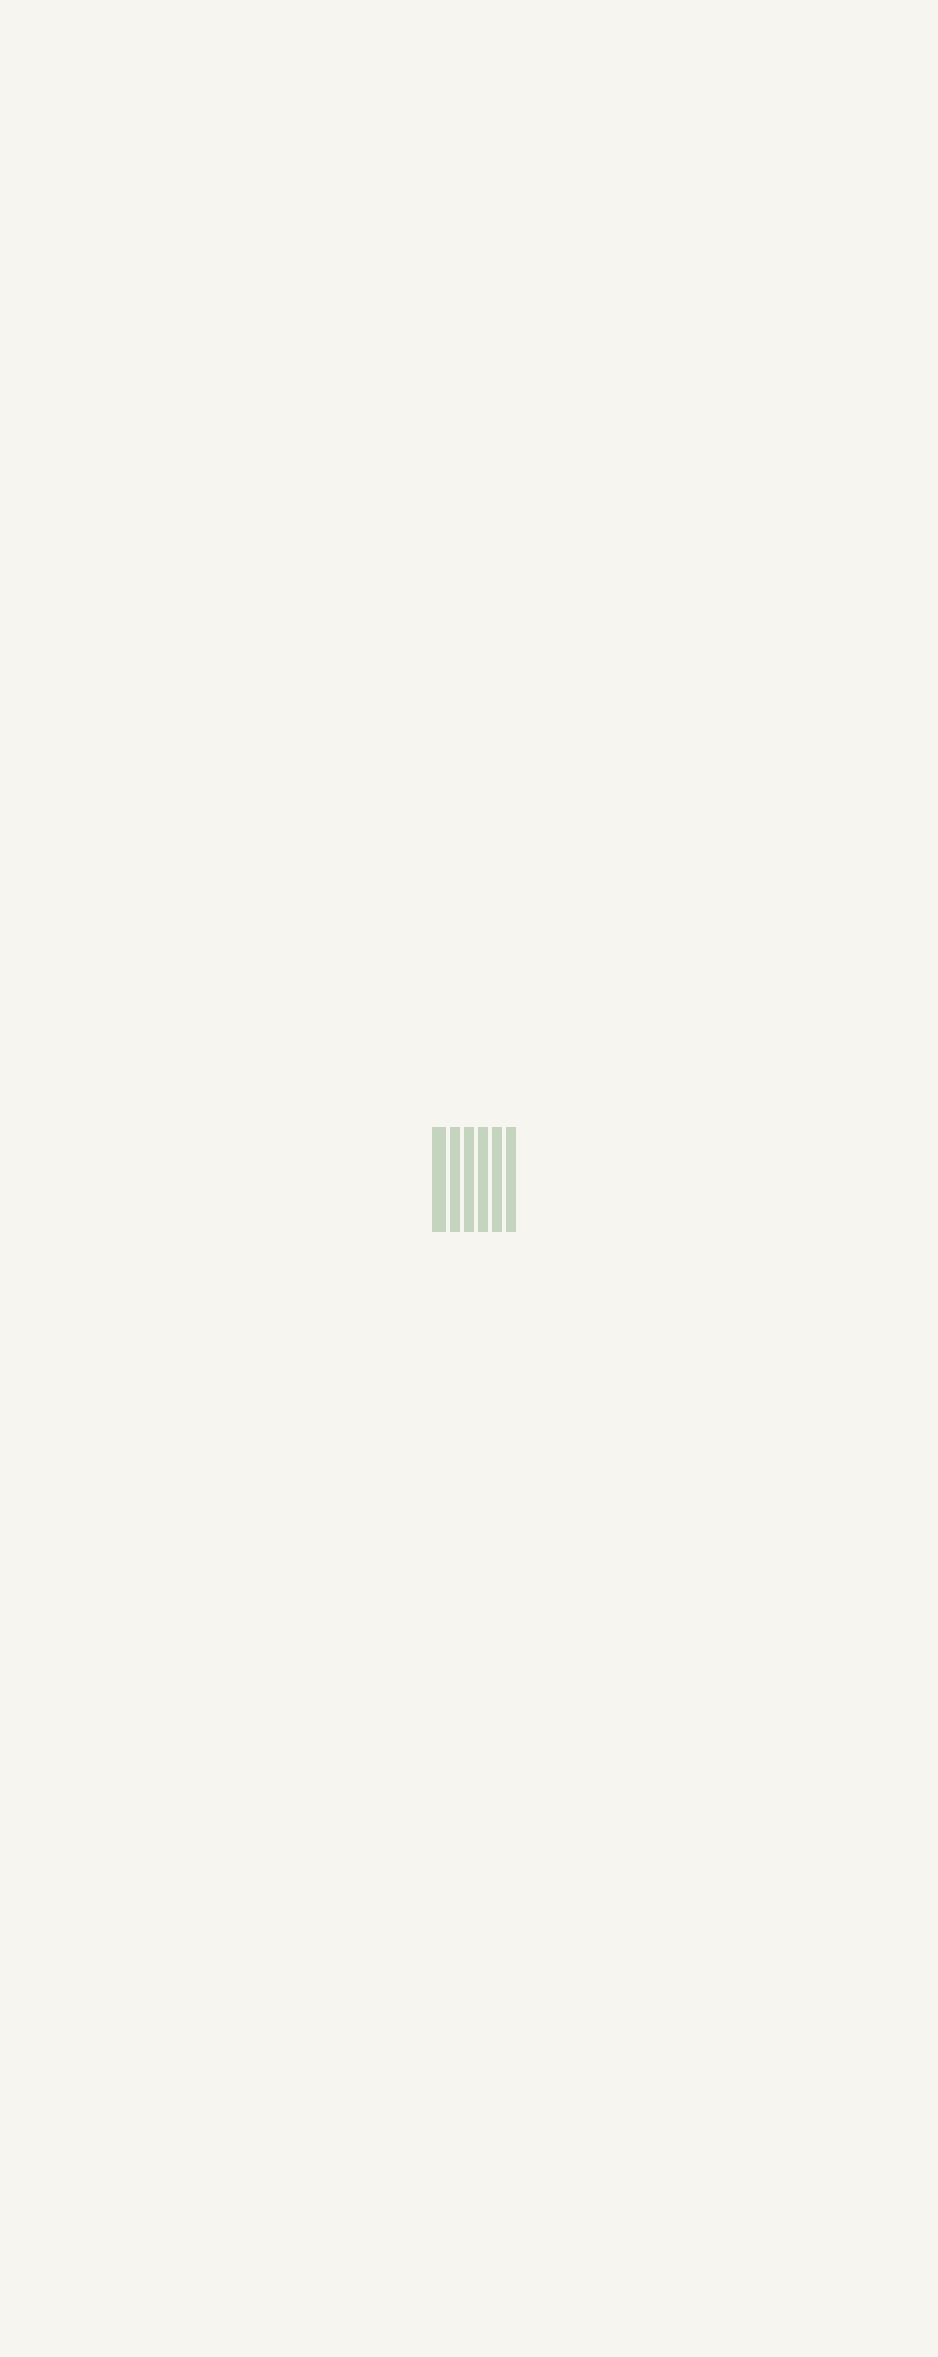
#include <cairo.h>
#include <math.h>
#include <stddef.h>

typedef struct { double x, y, w, h; unsigned color; } box_t;

static void ink(cairo_t *ctx, unsigned color) {
    cairo_set_source_rgb(ctx, (color >> 16) / 255.0, (color >> 8 & 255) / 255.0, (color & 255) / 255.0);
}

int main(void) {
    cairo_surface_t *surface = cairo_image_surface_create(CAIRO_FORMAT_RGB24, 938, 2357);
    cairo_t *ctx = cairo_create(surface);
    cairo_font_options_t *options = cairo_font_options_create();
    cairo_font_options_set_hint_metrics(options, CAIRO_HINT_METRICS_OFF);
    cairo_font_options_set_hint_style(options, CAIRO_HINT_STYLE_NONE);
    cairo_set_font_options(ctx, options);
    cairo_set_miter_limit(ctx, 4);
    ink(ctx, 0xF7F5EF);
    cairo_paint(ctx);
    {
        static const box_t items[] = {
            {432, 1127, 14, 105, 0xC4D4BE},
            {450, 1127, 10, 105, 0xC4D4BE},
            {464, 1127, 10, 105, 0xC4D4BE},
            {478, 1127, 10, 105, 0xC4D4BE},
            {492, 1127, 10, 105, 0xC4D4BE},
            {506, 1127, 10, 105, 0xC4D4BE},
        };
        for (size_t i = 0; i < sizeof items / sizeof *items; i++) {
            ink(ctx, items[i].color);
            cairo_rectangle(ctx, items[i].x, items[i].y, items[i].w, items[i].h);
            cairo_fill(ctx);
        }
    }
    cairo_surface_write_to_png(surface, "image.png");
    cairo_font_options_destroy(options);
    cairo_destroy(ctx);
    cairo_surface_destroy(surface);
    return 0;
}
